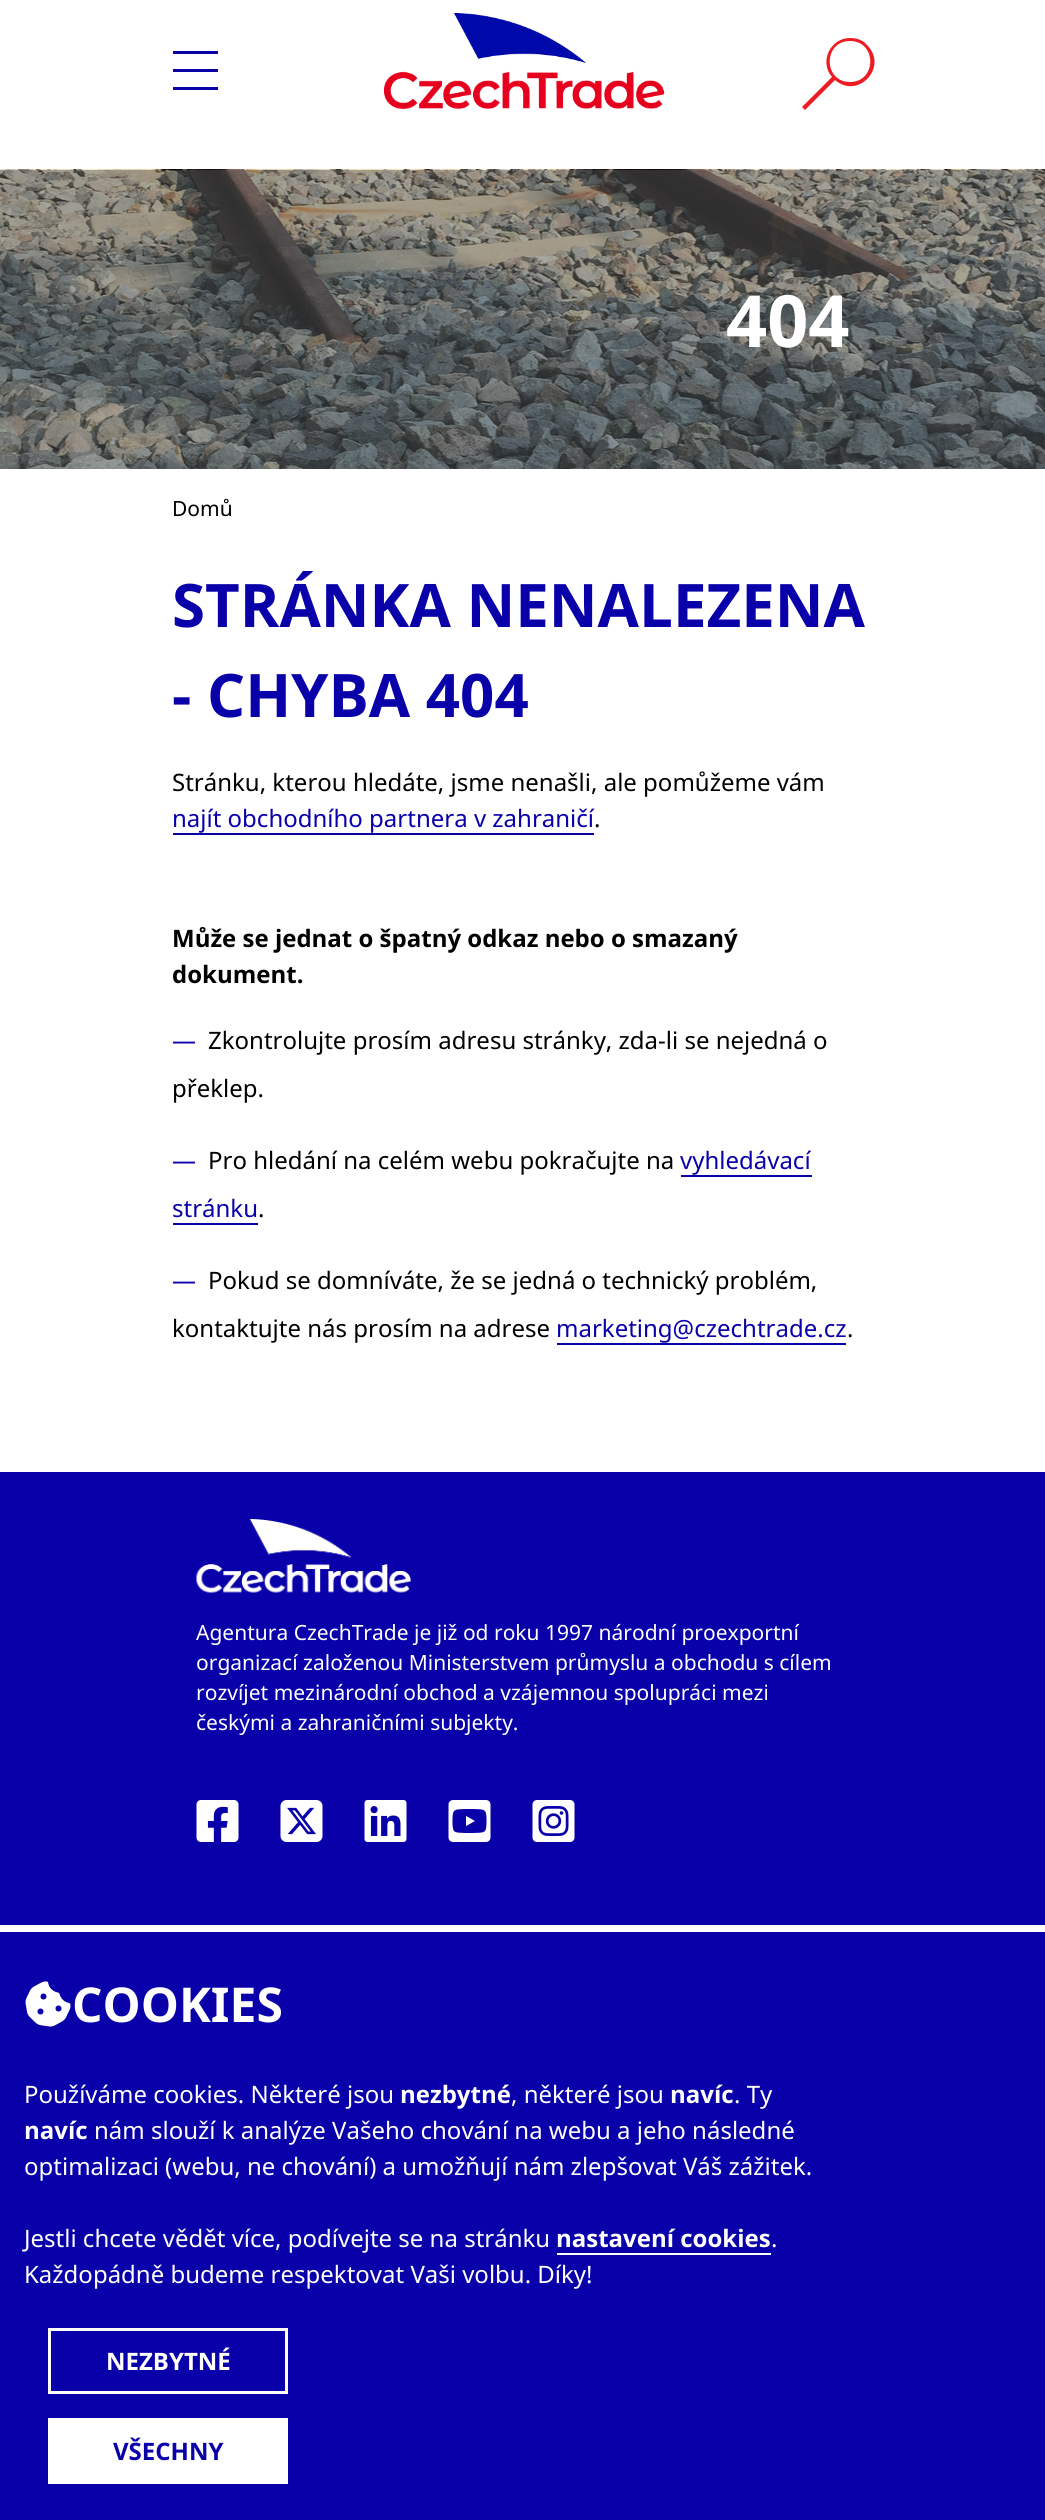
#include <cairo.h>
#include <math.h>
#include <stddef.h>

typedef struct { double x, y; const char *s; } line_t;
typedef struct { double x, y, w, h; unsigned color; } box_t;

static void ink(cairo_t *ctx, unsigned color) {
    cairo_set_source_rgb(ctx, (color >> 16) / 255.0, (color >> 8 & 255) / 255.0, (color & 255) / 255.0);
}

static void paste(cairo_t *ctx, const char *path, double x, double y, double w, double h) {
    cairo_surface_t *image = cairo_image_surface_create_from_png(path);
    cairo_save(ctx);
    cairo_set_source_surface(ctx, image, x, y);
    cairo_rectangle(ctx, x, y, w, h);
    cairo_fill(ctx);
    cairo_restore(ctx);
    cairo_surface_destroy(image);
}

int main(void) {
    cairo_surface_t *surface = cairo_image_surface_create(CAIRO_FORMAT_RGB24, 1045, 2520);
    cairo_t *ctx = cairo_create(surface);
    cairo_font_options_t *options = cairo_font_options_create();
    cairo_font_options_set_hint_metrics(options, CAIRO_HINT_METRICS_OFF);
    cairo_font_options_set_hint_style(options, CAIRO_HINT_STYLE_NONE);
    cairo_set_font_options(ctx, options);
    cairo_set_miter_limit(ctx, 4);
    ink(ctx, 0xFFFFFF);
    cairo_paint(ctx);
    {
        static const box_t items[] = {
            {173, 69, 45, 3, 0x0900A9},
            {173, 51, 45, 3, 0x0900A9},
            {173, 87, 45, 3, 0x0900A9},
        };
        for (size_t i = 0; i < sizeof items / sizeof *items; i++) {
            ink(ctx, items[i].color);
            cairo_rectangle(ctx, items[i].x, items[i].y, items[i].w, items[i].h);
            cairo_fill(ctx);
        }
    }
    paste(ctx, "media/1.png", 384, 13, 281, 96);
    ink(ctx, 0xED1C24);
    cairo_new_path(ctx);
    cairo_move_to(ctx, 850, 38);
    cairo_curve_to(ctx, 830, 38, 819, 62, 832, 77);
    cairo_line_to(ctx, 802, 107);
    cairo_line_to(ctx, 805, 110);
    cairo_line_to(ctx, 835, 80);
    cairo_curve_to(ctx, 858, 100, 889, 67, 867, 45);
    cairo_curve_to(ctx, 863, 40, 857, 38, 850, 38);
    cairo_close_path(ctx);
    cairo_move_to(ctx, 850, 82);
    cairo_curve_to(ctx, 823, 82, 823, 41, 850, 41);
    cairo_curve_to(ctx, 877, 41, 877, 82, 850, 82);
    cairo_close_path(ctx);
    cairo_fill(ctx);
    paste(ctx, "media/2.png", 0, 169, 1045, 300);
    cairo_select_font_face(ctx, "Noto Sans", CAIRO_FONT_SLANT_NORMAL, CAIRO_FONT_WEIGHT_BOLD);
    cairo_set_font_size(ctx, 72);
    ink(ctx, 0xFFFFFF);
    cairo_move_to(ctx, 726, 347);
    cairo_show_text(ctx, "404");
    cairo_select_font_face(ctx, "Noto Sans", CAIRO_FONT_SLANT_NORMAL, CAIRO_FONT_WEIGHT_NORMAL);
    cairo_set_font_size(ctx, 21);
    ink(ctx, 0x000000);
    cairo_move_to(ctx, 172, 516);
    cairo_show_text(ctx, "Domů");
    cairo_select_font_face(ctx, "Noto Sans", CAIRO_FONT_SLANT_NORMAL, CAIRO_FONT_WEIGHT_BOLD);
    cairo_set_font_size(ctx, 60);
    ink(ctx, 0x0900A9);
    cairo_move_to(ctx, 172, 627);
    cairo_show_text(ctx, "STRÁNKA NENALEZENA");
    cairo_move_to(ctx, 172, 717);
    cairo_show_text(ctx, "- CHYBA 404");
    cairo_select_font_face(ctx, "Noto Sans", CAIRO_FONT_SLANT_NORMAL, CAIRO_FONT_WEIGHT_NORMAL);
    cairo_set_font_size(ctx, 24);
    ink(ctx, 0x000000);
    cairo_move_to(ctx, 172, 791);
    cairo_show_text(ctx, "Stránku, kterou hledáte, jsme nenašli, ale pomůžeme vám");
    ink(ctx, 0x0900A9);
    cairo_move_to(ctx, 172, 827);
    cairo_show_text(ctx, "najít obchodního partnera v zahraničí");
    cairo_rectangle(ctx, 173, 833, 421, 2);
    cairo_fill(ctx);
    ink(ctx, 0x000000);
    cairo_move_to(ctx, 594, 827);
    cairo_show_text(ctx, ".");
    cairo_select_font_face(ctx, "Noto Sans", CAIRO_FONT_SLANT_NORMAL, CAIRO_FONT_WEIGHT_BOLD);
    cairo_move_to(ctx, 172, 947);
    cairo_show_text(ctx, "Může se jednat o špatný odkaz nebo o smazaný");
    cairo_move_to(ctx, 172, 983);
    cairo_show_text(ctx, "dokument.");
    cairo_select_font_face(ctx, "Noto Sans", CAIRO_FONT_SLANT_NORMAL, CAIRO_FONT_WEIGHT_NORMAL);
    ink(ctx, 0x0900A9);
    cairo_move_to(ctx, 172, 1049);
    cairo_show_text(ctx, "—");
    ink(ctx, 0x000000);
    cairo_move_to(ctx, 208, 1049);
    cairo_show_text(ctx, "Zkontrolujte prosím adresu stránky, zda-li se nejedná o");
    cairo_move_to(ctx, 172, 1097);
    cairo_show_text(ctx, "překlep.");
    ink(ctx, 0x0900A9);
    cairo_move_to(ctx, 172, 1169);
    cairo_show_text(ctx, "—");
    ink(ctx, 0x000000);
    cairo_move_to(ctx, 208, 1169);
    cairo_show_text(ctx, "Pro hledání na celém webu pokračujte na");
    ink(ctx, 0x0900A9);
    cairo_move_to(ctx, 680, 1169);
    cairo_show_text(ctx, "vyhledávací");
    cairo_rectangle(ctx, 681, 1175, 131, 2);
    cairo_fill(ctx);
    cairo_move_to(ctx, 172, 1217);
    cairo_show_text(ctx, "stránku");
    cairo_rectangle(ctx, 173, 1223, 85, 2);
    cairo_fill(ctx);
    ink(ctx, 0x000000);
    cairo_move_to(ctx, 258, 1217);
    cairo_show_text(ctx, ".");
    ink(ctx, 0x0900A9);
    cairo_move_to(ctx, 172, 1289);
    cairo_show_text(ctx, "—");
    ink(ctx, 0x000000);
    cairo_move_to(ctx, 208, 1289);
    cairo_show_text(ctx, "Pokud se domníváte, že se jedná o technický problém,");
    cairo_move_to(ctx, 172, 1337);
    cairo_show_text(ctx, "kontaktujte nás prosím na adrese");
    ink(ctx, 0x0900A9);
    cairo_move_to(ctx, 556, 1337);
    cairo_show_text(ctx, "marketing@czechtrade.cz");
    cairo_rectangle(ctx, 557, 1343, 289, 2);
    cairo_fill(ctx);
    ink(ctx, 0x000000);
    cairo_move_to(ctx, 847, 1337);
    cairo_show_text(ctx, ".");
    ink(ctx, 0x0900A9);
    cairo_rectangle(ctx, 0, 1472, 1045, 453);
    cairo_fill(ctx);
    paste(ctx, "media/3.png", 196, 1519, 215, 74);
    cairo_set_font_size(ctx, 21);
    ink(ctx, 0xFFFFFF);
    {
        static const line_t items[] = {
            {196, 1640, "Agentura CzechTrade je již od roku 1997 národní proexportní"},
            {196, 1670, "organizací založenou Ministerstvem průmyslu a obchodu s cílem"},
            {196, 1700, "rozvíjet mezinárodní obchod a vzájemnou spolupráci mezi"},
            {196, 1730, "českými a zahraničními subjekty."},
        };
        for (size_t i = 0; i < sizeof items / sizeof *items; i++) {
            cairo_move_to(ctx, items[i].x, items[i].y);
            cairo_show_text(ctx, items[i].s);
        }
    }
    paste(ctx, "media/4.png", 196, 1800, 43, 42);
    paste(ctx, "media/5.png", 280, 1800, 43, 42);
    paste(ctx, "media/6.png", 364, 1800, 43, 42);
    paste(ctx, "media/7.png", 448, 1800, 43, 42);
    paste(ctx, "media/8.png", 532, 1800, 43, 42);
    ink(ctx, 0x0900A9);
    cairo_rectangle(ctx, 0, 1932, 1045, 588);
    cairo_fill(ctx);
    paste(ctx, "media/9.png", 25, 1981, 46, 46);
    cairo_select_font_face(ctx, "Noto Sans", CAIRO_FONT_SLANT_NORMAL, CAIRO_FONT_WEIGHT_BOLD);
    cairo_set_font_size(ctx, 48);
    ink(ctx, 0xFFFFFF);
    cairo_move_to(ctx, 72, 2022);
    cairo_show_text(ctx, "COOKIES");
    cairo_select_font_face(ctx, "Noto Sans", CAIRO_FONT_SLANT_NORMAL, CAIRO_FONT_WEIGHT_NORMAL);
    cairo_set_font_size(ctx, 24);
    cairo_move_to(ctx, 24, 2103);
    cairo_show_text(ctx, "Používáme cookies. Některé jsou");
    cairo_select_font_face(ctx, "Noto Sans", CAIRO_FONT_SLANT_NORMAL, CAIRO_FONT_WEIGHT_BOLD);
    cairo_move_to(ctx, 400, 2103);
    cairo_show_text(ctx, "nezbytné");
    cairo_select_font_face(ctx, "Noto Sans", CAIRO_FONT_SLANT_NORMAL, CAIRO_FONT_WEIGHT_NORMAL);
    cairo_move_to(ctx, 511, 2103);
    cairo_show_text(ctx, ", některé jsou");
    cairo_select_font_face(ctx, "Noto Sans", CAIRO_FONT_SLANT_NORMAL, CAIRO_FONT_WEIGHT_BOLD);
    cairo_move_to(ctx, 670, 2103);
    cairo_show_text(ctx, "navíc");
    cairo_select_font_face(ctx, "Noto Sans", CAIRO_FONT_SLANT_NORMAL, CAIRO_FONT_WEIGHT_NORMAL);
    cairo_move_to(ctx, 734, 2103);
    cairo_show_text(ctx, ". Ty");
    cairo_select_font_face(ctx, "Noto Sans", CAIRO_FONT_SLANT_NORMAL, CAIRO_FONT_WEIGHT_BOLD);
    cairo_move_to(ctx, 24, 2139);
    cairo_show_text(ctx, "navíc");
    cairo_select_font_face(ctx, "Noto Sans", CAIRO_FONT_SLANT_NORMAL, CAIRO_FONT_WEIGHT_NORMAL);
    {
        static const line_t items[] = {
            {94, 2139, "nám slouží k analýze Vašeho chování na webu a jeho následné"},
            {24, 2175, "optimalizaci (webu, ne chování) a umožňují nám zlepšovat Váš zážitek."},
            {24, 2247, "Jestli chcete vědět více, podívejte se na stránku"},
        };
        for (size_t i = 0; i < sizeof items / sizeof *items; i++) {
            cairo_move_to(ctx, items[i].x, items[i].y);
            cairo_show_text(ctx, items[i].s);
        }
    }
    cairo_select_font_face(ctx, "Noto Sans", CAIRO_FONT_SLANT_NORMAL, CAIRO_FONT_WEIGHT_BOLD);
    cairo_move_to(ctx, 556, 2247);
    cairo_show_text(ctx, "nastavení cookies");
    cairo_rectangle(ctx, 557, 2253, 214, 2);
    cairo_fill(ctx);
    cairo_select_font_face(ctx, "Noto Sans", CAIRO_FONT_SLANT_NORMAL, CAIRO_FONT_WEIGHT_NORMAL);
    cairo_move_to(ctx, 771, 2247);
    cairo_show_text(ctx, ".");
    cairo_move_to(ctx, 24, 2283);
    cairo_show_text(ctx, "Každopádně budeme respektovat Vaši volbu. Díky!");
    cairo_rectangle(ctx, 49.5, 2329.5, 237, 63);
    cairo_set_line_width(ctx, 3);
    cairo_stroke(ctx);
    cairo_select_font_face(ctx, "Noto Sans", CAIRO_FONT_SLANT_NORMAL, CAIRO_FONT_WEIGHT_BOLD);
    cairo_move_to(ctx, 106, 2370);
    cairo_show_text(ctx, "NEZBYTNÉ");
    cairo_rectangle(ctx, 48, 2418, 240, 66);
    cairo_fill(ctx);
    ink(ctx, 0x0900A9);
    cairo_move_to(ctx, 113, 2460);
    cairo_show_text(ctx, "VŠECHNY");
    cairo_surface_write_to_png(surface, "image.png");
    cairo_font_options_destroy(options);
    cairo_destroy(ctx);
    cairo_surface_destroy(surface);
    return 0;
}
